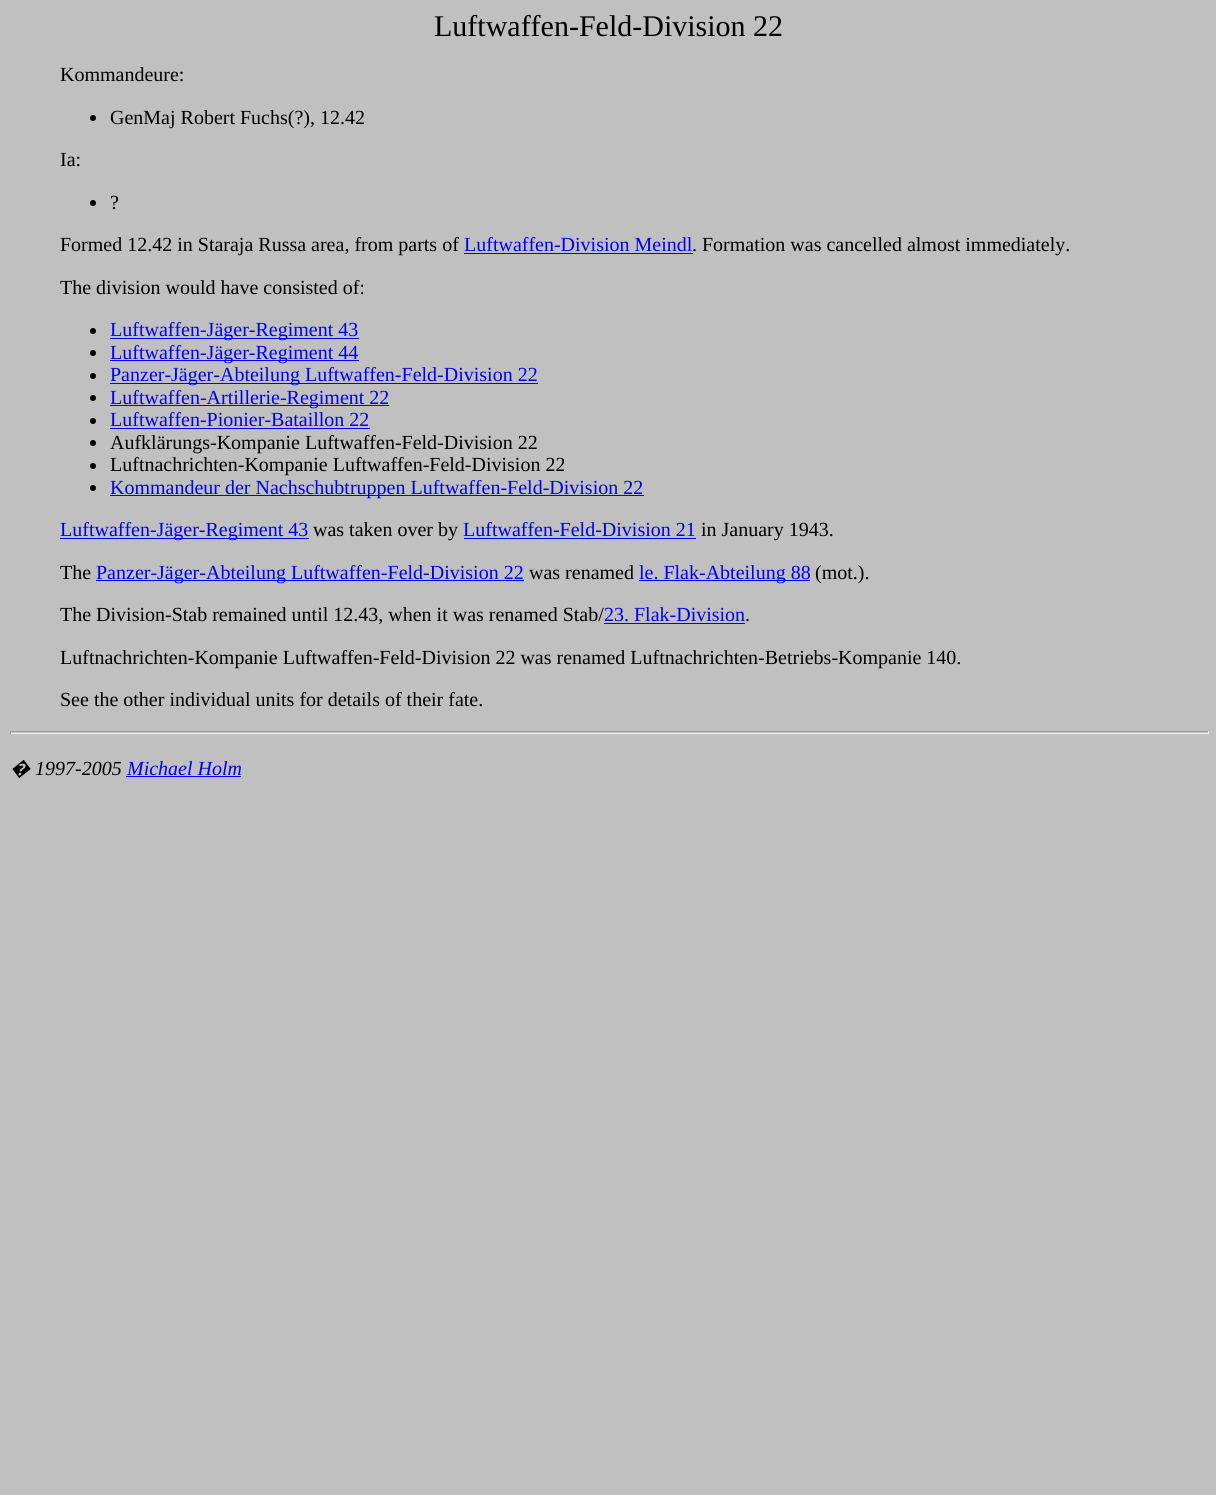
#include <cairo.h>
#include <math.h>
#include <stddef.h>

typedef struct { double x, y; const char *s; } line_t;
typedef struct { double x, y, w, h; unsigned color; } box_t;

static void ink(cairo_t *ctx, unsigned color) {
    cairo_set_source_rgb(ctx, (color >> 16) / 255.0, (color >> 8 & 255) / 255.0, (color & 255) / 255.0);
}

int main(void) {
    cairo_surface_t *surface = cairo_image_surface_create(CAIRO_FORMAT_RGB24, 1216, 1495);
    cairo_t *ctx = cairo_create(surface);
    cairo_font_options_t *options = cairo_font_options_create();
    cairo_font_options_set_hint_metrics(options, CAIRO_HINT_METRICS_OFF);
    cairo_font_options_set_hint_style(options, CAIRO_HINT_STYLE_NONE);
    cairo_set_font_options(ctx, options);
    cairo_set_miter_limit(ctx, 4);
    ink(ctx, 0xC0C0C0);
    cairo_paint(ctx);
    cairo_select_font_face(ctx, "Liberation Serif", CAIRO_FONT_SLANT_NORMAL, CAIRO_FONT_WEIGHT_NORMAL);
    cairo_set_font_size(ctx, 30);
    ink(ctx, 0x000000);
    cairo_move_to(ctx, 434, 36);
    cairo_show_text(ctx, "Luftwaffen-Feld-Division 22");
    cairo_set_font_size(ctx, 20);
    cairo_move_to(ctx, 60, 81);
    cairo_show_text(ctx, "Kommandeure:");
    cairo_new_path(ctx);
    cairo_arc(ctx, 93, 118, 3, 0, 2 * M_PI);
    cairo_fill(ctx);
    cairo_move_to(ctx, 110, 124);
    cairo_show_text(ctx, "GenMaj Robert Fuchs(?), 12.42");
    cairo_move_to(ctx, 60, 166);
    cairo_show_text(ctx, "Ia:");
    cairo_new_path(ctx);
    cairo_arc(ctx, 93, 203, 3, 0, 2 * M_PI);
    cairo_fill(ctx);
    cairo_move_to(ctx, 110, 209);
    cairo_show_text(ctx, "?");
    cairo_move_to(ctx, 60, 251);
    cairo_show_text(ctx, "Formed 12.42 in Staraja Russa area, from parts of");
    ink(ctx, 0x0000EE);
    cairo_move_to(ctx, 464, 251);
    cairo_show_text(ctx, "Luftwaffen-Division Meindl");
    cairo_rectangle(ctx, 464, 253, 229, 1);
    cairo_fill(ctx);
    ink(ctx, 0x000000);
    cairo_move_to(ctx, 692, 251);
    cairo_show_text(ctx, ". Formation was cancelled almost immediately.");
    cairo_move_to(ctx, 60, 294);
    cairo_show_text(ctx, "The division would have consisted of:");
    cairo_new_path(ctx);
    cairo_arc(ctx, 93, 331, 3, 0, 2 * M_PI);
    cairo_fill(ctx);
    ink(ctx, 0x0000EE);
    cairo_rectangle(ctx, 110, 338, 249, 1);
    cairo_fill(ctx);
    cairo_move_to(ctx, 110, 336);
    cairo_show_text(ctx, "Luftwaffen-Jäger-Regiment 43");
    ink(ctx, 0x000000);
    cairo_new_path(ctx);
    cairo_arc(ctx, 93, 353, 3, 0, 2 * M_PI);
    cairo_fill(ctx);
    ink(ctx, 0x0000EE);
    cairo_rectangle(ctx, 110, 360, 249, 1);
    cairo_fill(ctx);
    cairo_move_to(ctx, 110, 359);
    cairo_show_text(ctx, "Luftwaffen-Jäger-Regiment 44");
    ink(ctx, 0x000000);
    cairo_new_path(ctx);
    cairo_arc(ctx, 93, 376, 3, 0, 2 * M_PI);
    cairo_fill(ctx);
    ink(ctx, 0x0000EE);
    cairo_rectangle(ctx, 110, 383, 428, 1);
    cairo_fill(ctx);
    cairo_move_to(ctx, 110, 381);
    cairo_show_text(ctx, "Panzer-Jäger-Abteilung Luftwaffen-Feld-Division 22");
    ink(ctx, 0x000000);
    cairo_new_path(ctx);
    cairo_arc(ctx, 93, 398, 3, 0, 2 * M_PI);
    cairo_fill(ctx);
    ink(ctx, 0x0000EE);
    cairo_rectangle(ctx, 110, 405, 279, 1);
    cairo_fill(ctx);
    cairo_move_to(ctx, 110, 404);
    cairo_show_text(ctx, "Luftwaffen-Artillerie-Regiment 22");
    ink(ctx, 0x000000);
    cairo_new_path(ctx);
    cairo_arc(ctx, 93, 421, 3, 0, 2 * M_PI);
    cairo_fill(ctx);
    ink(ctx, 0x0000EE);
    cairo_move_to(ctx, 110, 426);
    cairo_show_text(ctx, "Luftwaffen-Pionier-Bataillon 22");
    cairo_rectangle(ctx, 110, 428, 260, 1);
    cairo_fill(ctx);
    ink(ctx, 0x000000);
    cairo_arc(ctx, 93, 443, 3, 0, 2 * M_PI);
    cairo_fill(ctx);
    cairo_move_to(ctx, 110, 449);
    cairo_show_text(ctx, "Aufklärungs-Kompanie Luftwaffen-Feld-Division 22");
    cairo_new_path(ctx);
    cairo_arc(ctx, 93, 466, 3, 0, 2 * M_PI);
    cairo_fill(ctx);
    cairo_move_to(ctx, 110, 471);
    cairo_show_text(ctx, "Luftnachrichten-Kompanie Luftwaffen-Feld-Division 22");
    cairo_new_path(ctx);
    cairo_arc(ctx, 93, 488, 3, 0, 2 * M_PI);
    cairo_fill(ctx);
    ink(ctx, 0x0000EE);
    cairo_rectangle(ctx, 110, 495, 534, 1);
    cairo_fill(ctx);
    cairo_move_to(ctx, 110, 494);
    cairo_show_text(ctx, "Kommandeur der Nachschubtruppen Luftwaffen-Feld-Division 22");
    cairo_rectangle(ctx, 60, 538, 249, 1);
    cairo_fill(ctx);
    cairo_move_to(ctx, 60, 536);
    cairo_show_text(ctx, "Luftwaffen-Jäger-Regiment 43");
    ink(ctx, 0x000000);
    cairo_move_to(ctx, 313, 536);
    cairo_show_text(ctx, "was taken over by");
    ink(ctx, 0x0000EE);
    cairo_move_to(ctx, 463, 536);
    cairo_show_text(ctx, "Luftwaffen-Feld-Division 21");
    cairo_rectangle(ctx, 464, 538, 232, 1);
    cairo_fill(ctx);
    ink(ctx, 0x000000);
    cairo_move_to(ctx, 701, 536);
    cairo_show_text(ctx, "in January 1943.");
    cairo_move_to(ctx, 60, 579);
    cairo_show_text(ctx, "The");
    ink(ctx, 0x0000EE);
    cairo_rectangle(ctx, 96, 580, 428, 1);
    cairo_fill(ctx);
    cairo_move_to(ctx, 96, 579);
    cairo_show_text(ctx, "Panzer-Jäger-Abteilung Luftwaffen-Feld-Division 22");
    ink(ctx, 0x000000);
    cairo_move_to(ctx, 529, 579);
    cairo_show_text(ctx, "was renamed");
    ink(ctx, 0x0000EE);
    cairo_rectangle(ctx, 639, 580, 171, 1);
    cairo_fill(ctx);
    cairo_move_to(ctx, 639, 579);
    cairo_show_text(ctx, "le. Flak-Abteilung 88");
    ink(ctx, 0x000000);
    cairo_move_to(ctx, 815, 579);
    cairo_show_text(ctx, "(mot.).");
    cairo_move_to(ctx, 60, 621);
    cairo_show_text(ctx, "The Division-Stab remained until 12.43, when it was renamed Stab/");
    ink(ctx, 0x0000EE);
    cairo_move_to(ctx, 604, 621);
    cairo_show_text(ctx, "23. Flak-Division");
    cairo_rectangle(ctx, 604, 623, 141, 1);
    cairo_fill(ctx);
    ink(ctx, 0x000000);
    {
        static const line_t items[] = {
            {745, 621, "."},
            {60, 664, "Luftnachrichten-Kompanie Luftwaffen-Feld-Division 22 was renamed Luftnachrichten-Betriebs-Kompanie 140."},
            {60, 706, "See the other individual units for details of their fate."},
        };
        for (size_t i = 0; i < sizeof items / sizeof *items; i++) {
            cairo_move_to(ctx, items[i].x, items[i].y);
            cairo_show_text(ctx, items[i].s);
        }
    }
    {
        static const box_t items[] = {
            {10, 731, 1199, 1, 0x9F9F9F},
            {1208, 731, 1, 3, 0xEEEEEE},
            {10, 733, 1199, 1, 0xEEEEEE},
            {10, 731, 1, 3, 0x9F9F9F},
        };
        for (size_t i = 0; i < sizeof items / sizeof *items; i++) {
            ink(ctx, items[i].color);
            cairo_rectangle(ctx, items[i].x, items[i].y, items[i].w, items[i].h);
            cairo_fill(ctx);
        }
    }
    cairo_select_font_face(ctx, "Noto Sans", CAIRO_FONT_SLANT_ITALIC, CAIRO_FONT_WEIGHT_NORMAL);
    ink(ctx, 0x000000);
    cairo_move_to(ctx, 10, 775);
    cairo_show_text(ctx, "�");
    cairo_select_font_face(ctx, "Liberation Serif", CAIRO_FONT_SLANT_ITALIC, CAIRO_FONT_WEIGHT_NORMAL);
    cairo_move_to(ctx, 35, 775);
    cairo_show_text(ctx, "1997-2005");
    ink(ctx, 0x0000EE);
    cairo_move_to(ctx, 127, 775);
    cairo_show_text(ctx, "Michael Holm");
    cairo_rectangle(ctx, 126, 776, 115, 1);
    cairo_fill(ctx);
    cairo_surface_write_to_png(surface, "image.png");
    cairo_font_options_destroy(options);
    cairo_destroy(ctx);
    cairo_surface_destroy(surface);
    return 0;
}
